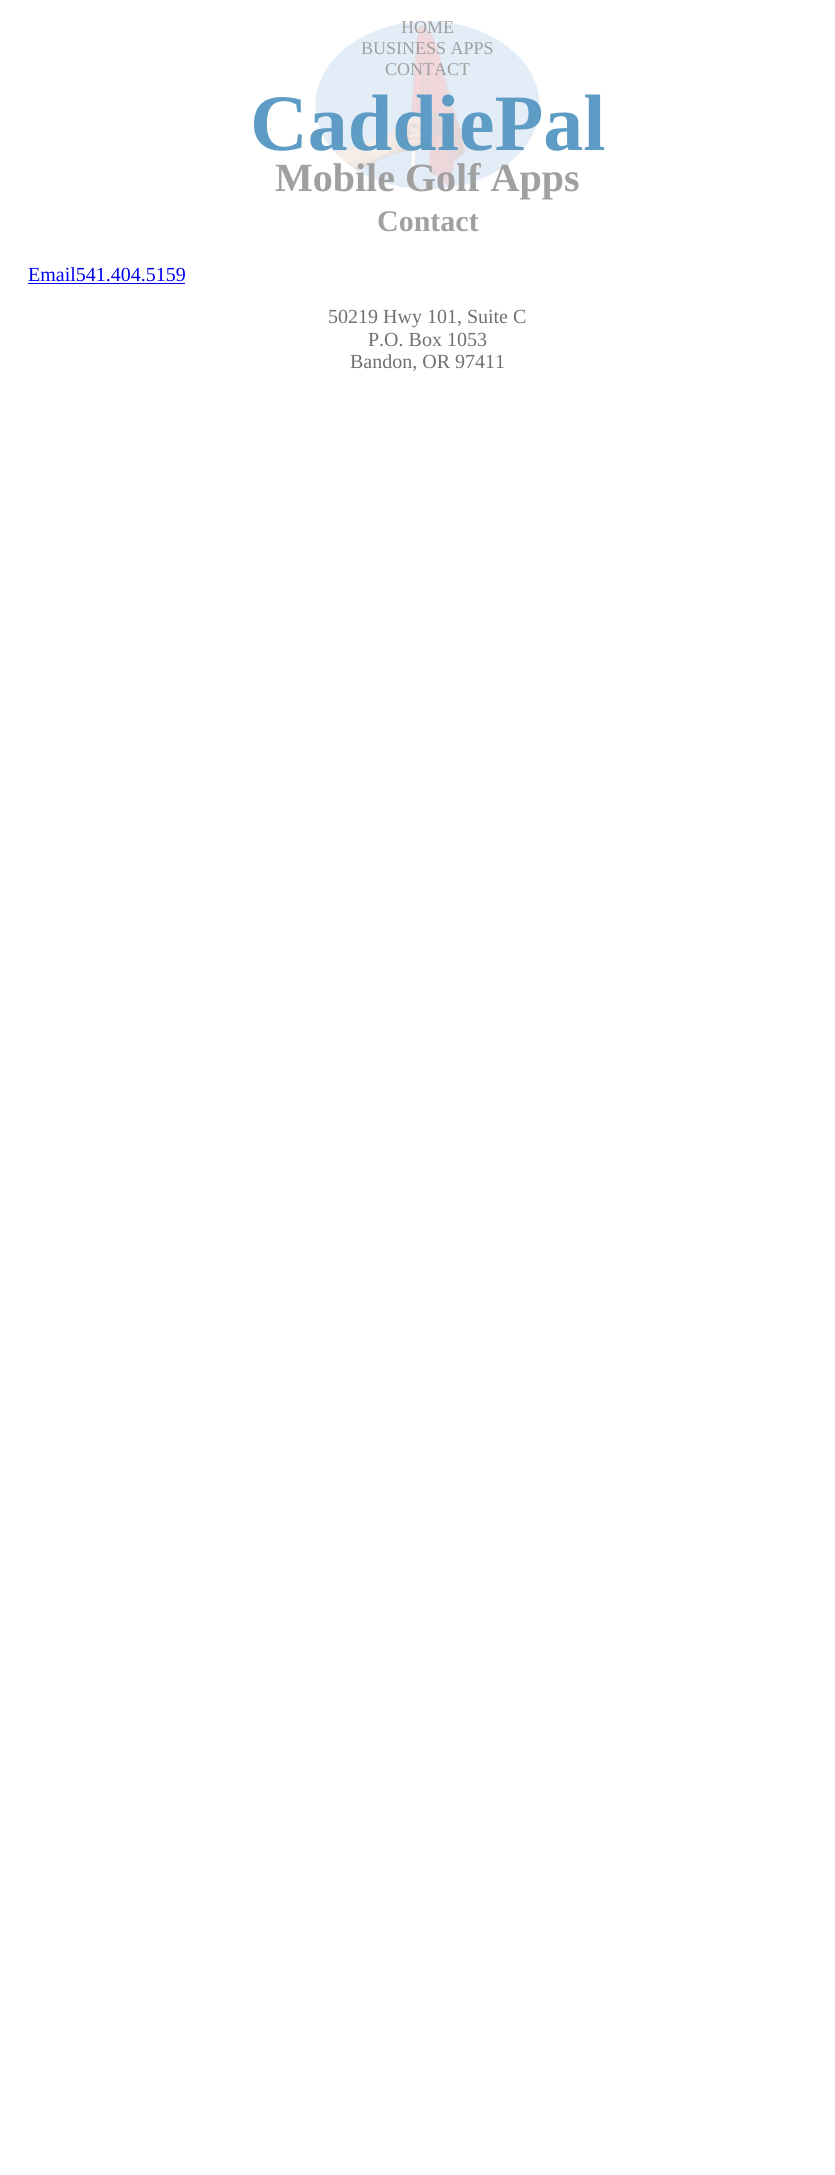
#include <cairo.h>
#include <math.h>
#include <stddef.h>

typedef struct { double x, y; const char *s; } line_t;

static void ink(cairo_t *ctx, unsigned color) {
    cairo_set_source_rgb(ctx, (color >> 16) / 255.0, (color >> 8 & 255) / 255.0, (color & 255) / 255.0);
}

static void paste(cairo_t *ctx, const char *path, double x, double y, double w, double h) {
    cairo_surface_t *image = cairo_image_surface_create_from_png(path);
    cairo_save(ctx);
    cairo_set_source_surface(ctx, image, x, y);
    cairo_rectangle(ctx, x, y, w, h);
    cairo_fill(ctx);
    cairo_restore(ctx);
    cairo_surface_destroy(image);
}

int main(void) {
    cairo_surface_t *surface = cairo_image_surface_create(CAIRO_FORMAT_RGB24, 835, 2175);
    cairo_t *ctx = cairo_create(surface);
    cairo_font_options_t *options = cairo_font_options_create();
    cairo_font_options_set_hint_metrics(options, CAIRO_HINT_METRICS_OFF);
    cairo_font_options_set_hint_style(options, CAIRO_HINT_STYLE_NONE);
    cairo_set_font_options(ctx, options);
    cairo_set_miter_limit(ctx, 4);
    ink(ctx, 0xFFFFFF);
    cairo_paint(ctx);
    paste(ctx, "media/1.png", 315, 21, 225, 168);
    cairo_select_font_face(ctx, "Liberation Serif", CAIRO_FONT_SLANT_NORMAL, CAIRO_FONT_WEIGHT_NORMAL);
    cairo_set_font_size(ctx, 18);
    ink(ctx, 0xA0A0A0);
    {
        static const line_t items[] = {
            {401, 33, "HOME"},
            {361, 54, "BUSINESS APPS"},
            {385, 75, "CONTACT"},
        };
        for (size_t i = 0; i < sizeof items / sizeof *items; i++) {
            cairo_move_to(ctx, items[i].x, items[i].y);
            cairo_show_text(ctx, items[i].s);
        }
    }
    cairo_select_font_face(ctx, "Liberation Serif", CAIRO_FONT_SLANT_NORMAL, CAIRO_FONT_WEIGHT_BOLD);
    cairo_set_font_size(ctx, 80);
    ink(ctx, 0x5F9CC5);
    cairo_move_to(ctx, 250, 150);
    cairo_show_text(ctx, "CaddiePal");
    cairo_set_font_size(ctx, 40);
    ink(ctx, 0xA0A0A0);
    cairo_move_to(ctx, 275, 191);
    cairo_show_text(ctx, "Mobile Golf Apps");
    cairo_set_font_size(ctx, 30);
    cairo_move_to(ctx, 377, 231);
    cairo_show_text(ctx, "Contact");
    cairo_select_font_face(ctx, "Liberation Serif", CAIRO_FONT_SLANT_NORMAL, CAIRO_FONT_WEIGHT_NORMAL);
    cairo_set_font_size(ctx, 20);
    ink(ctx, 0x0000EE);
    cairo_move_to(ctx, 28, 281);
    cairo_show_text(ctx, "Email541.404.5159");
    cairo_rectangle(ctx, 28, 283, 157, 1);
    cairo_fill(ctx);
    ink(ctx, 0x707070);
    {
        static const line_t items[] = {
            {328, 323, "50219 Hwy 101, Suite C"},
            {368, 346, "P.O. Box 1053"},
            {350, 368, "Bandon, OR 97411"},
        };
        for (size_t i = 0; i < sizeof items / sizeof *items; i++) {
            cairo_move_to(ctx, items[i].x, items[i].y);
            cairo_show_text(ctx, items[i].s);
        }
    }
    cairo_surface_write_to_png(surface, "image.png");
    cairo_font_options_destroy(options);
    cairo_destroy(ctx);
    cairo_surface_destroy(surface);
    return 0;
}
